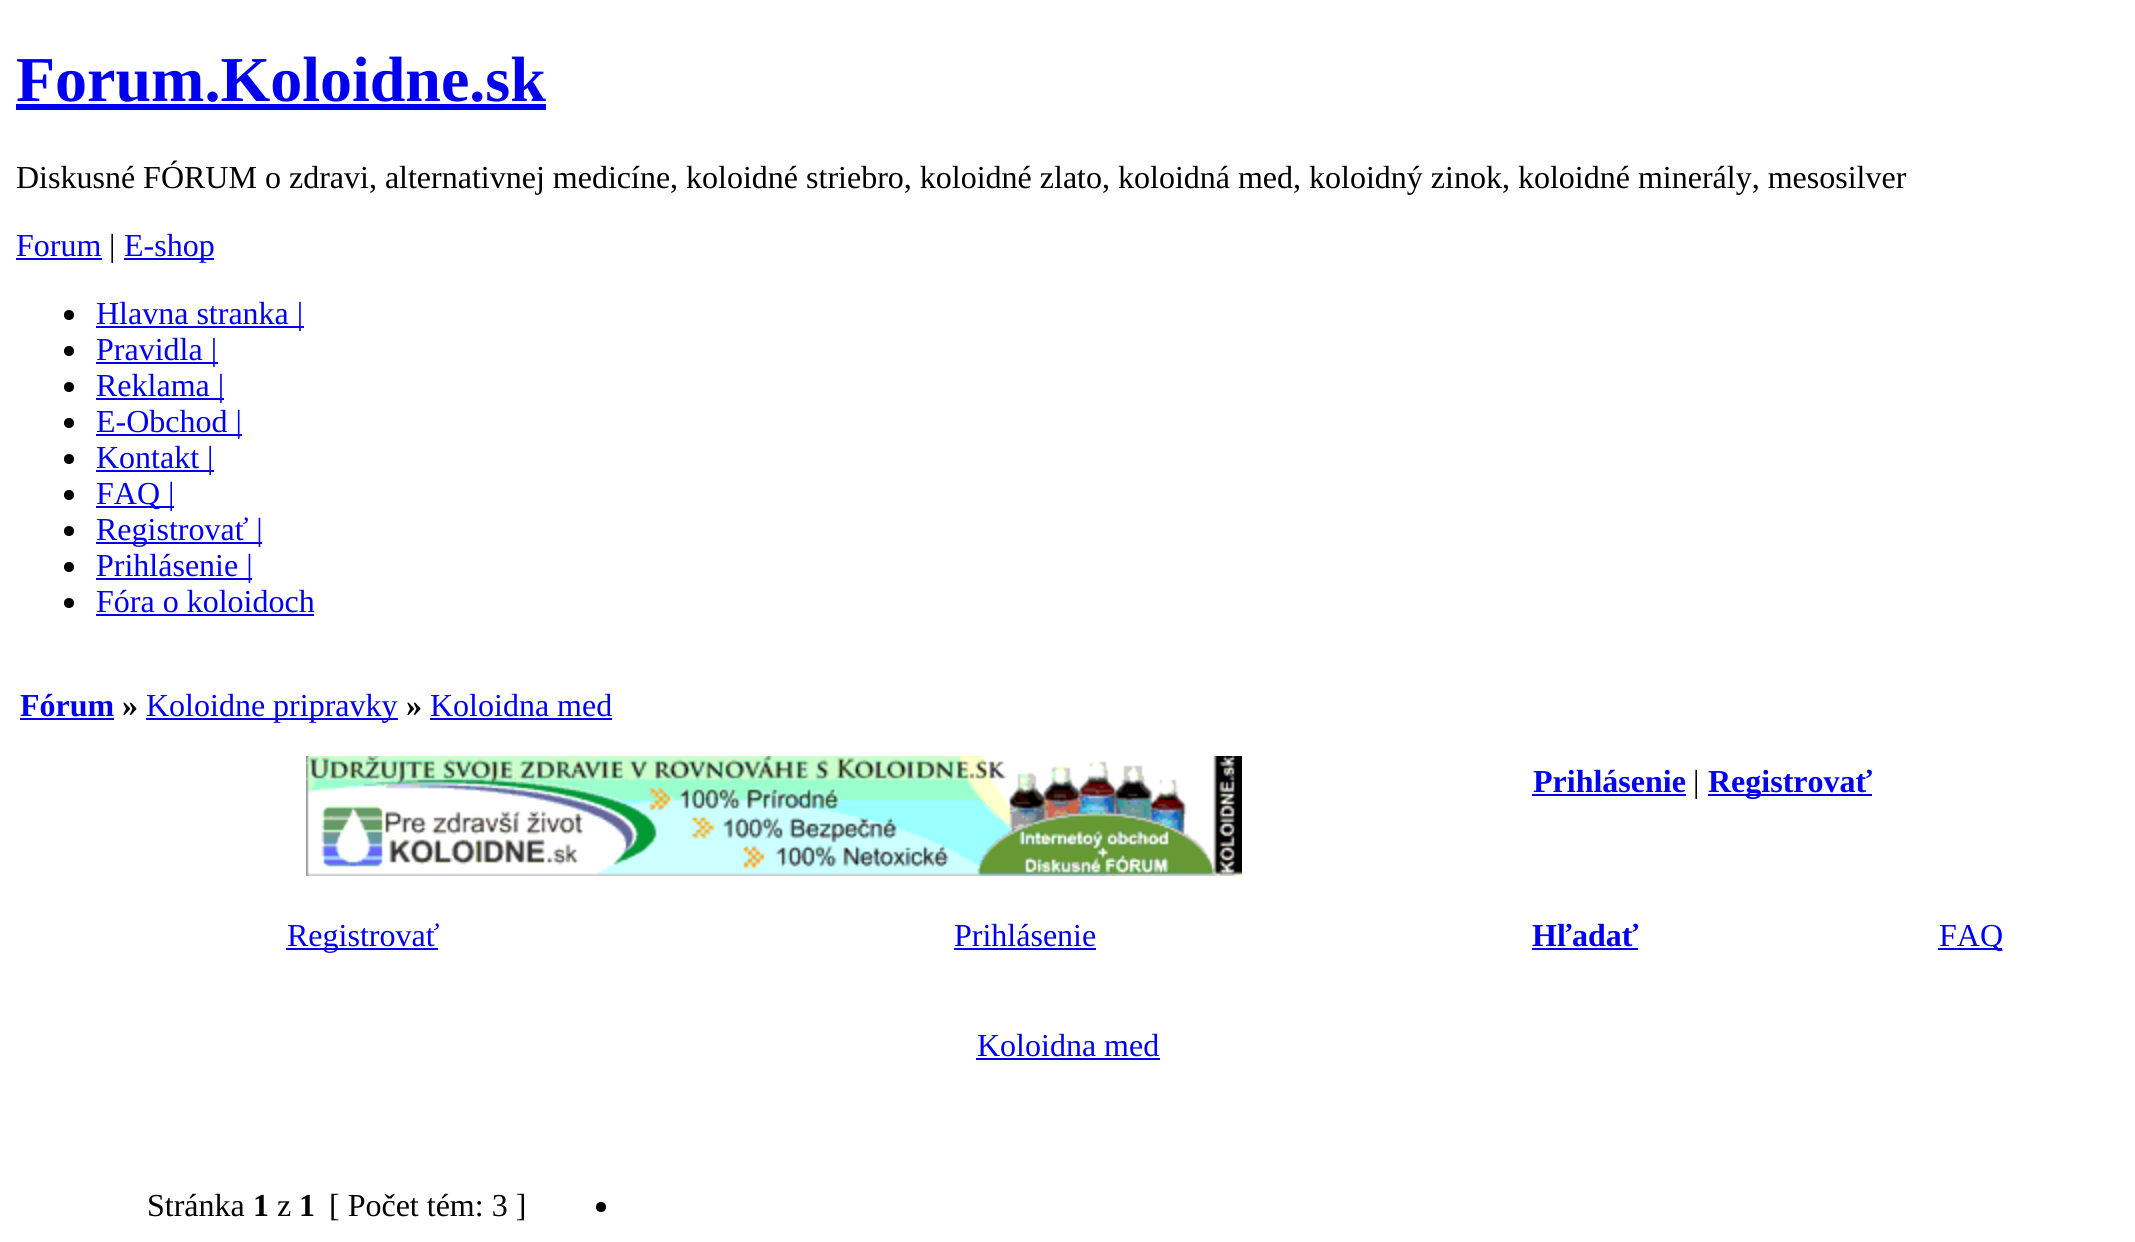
#include <cairo.h>
#include <math.h>
#include <stddef.h>


static void ink(cairo_t *ctx, unsigned color) {
    cairo_set_source_rgb(ctx, (color >> 16) / 255.0, (color >> 8 & 255) / 255.0, (color & 255) / 255.0);
}

static void paste(cairo_t *ctx, const char *path, double x, double y, double w, double h) {
    cairo_surface_t *image = cairo_image_surface_create_from_png(path);
    cairo_save(ctx);
    cairo_set_source_surface(ctx, image, x, y);
    cairo_rectangle(ctx, x, y, w, h);
    cairo_fill(ctx);
    cairo_restore(ctx);
    cairo_surface_destroy(image);
}

int main(void) {
    cairo_surface_t *surface = cairo_image_surface_create(CAIRO_FORMAT_RGB24, 2135, 1242);
    cairo_t *ctx = cairo_create(surface);
    cairo_font_options_t *options = cairo_font_options_create();
    cairo_font_options_set_hint_metrics(options, CAIRO_HINT_METRICS_OFF);
    cairo_font_options_set_hint_style(options, CAIRO_HINT_STYLE_NONE);
    cairo_set_font_options(ctx, options);
    cairo_set_miter_limit(ctx, 4);
    ink(ctx, 0xFFFFFF);
    cairo_paint(ctx);
    cairo_select_font_face(ctx, "Liberation Serif", CAIRO_FONT_SLANT_NORMAL, CAIRO_FONT_WEIGHT_BOLD);
    cairo_set_font_size(ctx, 64);
    ink(ctx, 0x0000EE);
    cairo_move_to(ctx, 16, 101);
    cairo_show_text(ctx, "Forum.Koloidne.sk");
    cairo_rectangle(ctx, 16, 104, 530, 6);
    cairo_fill(ctx);
    cairo_select_font_face(ctx, "Liberation Serif", CAIRO_FONT_SLANT_NORMAL, CAIRO_FONT_WEIGHT_NORMAL);
    cairo_set_font_size(ctx, 32);
    ink(ctx, 0x000000);
    cairo_move_to(ctx, 16, 188);
    cairo_show_text(ctx, "Diskusné FÓRUM o zdravi, alternativnej medicíne, koloidné striebro, koloidné zlato, koloidná med, koloidný zinok, koloidné minerály, mesosilver");
    ink(ctx, 0x0000EE);
    cairo_move_to(ctx, 16, 256);
    cairo_show_text(ctx, "Forum");
    cairo_rectangle(ctx, 16, 258, 86, 2);
    cairo_fill(ctx);
    ink(ctx, 0x000000);
    cairo_move_to(ctx, 109, 256);
    cairo_show_text(ctx, "|");
    ink(ctx, 0x0000EE);
    cairo_rectangle(ctx, 124, 258, 90, 2);
    cairo_fill(ctx);
    cairo_move_to(ctx, 124, 256);
    cairo_show_text(ctx, "E-shop");
    ink(ctx, 0x000000);
    cairo_new_path(ctx);
    cairo_arc(ctx, 69, 315, 5, 0, 2 * M_PI);
    cairo_fill(ctx);
    ink(ctx, 0x0000EE);
    cairo_rectangle(ctx, 96, 326, 208, 2);
    cairo_fill(ctx);
    cairo_move_to(ctx, 96, 324);
    cairo_show_text(ctx, "Hlavna stranka |");
    ink(ctx, 0x000000);
    cairo_new_path(ctx);
    cairo_arc(ctx, 69, 351, 5, 0, 2 * M_PI);
    cairo_fill(ctx);
    ink(ctx, 0x0000EE);
    cairo_rectangle(ctx, 96, 362, 122, 2);
    cairo_fill(ctx);
    cairo_move_to(ctx, 96, 360);
    cairo_show_text(ctx, "Pravidla |");
    ink(ctx, 0x000000);
    cairo_new_path(ctx);
    cairo_arc(ctx, 69, 387, 5, 0, 2 * M_PI);
    cairo_fill(ctx);
    ink(ctx, 0x0000EE);
    cairo_rectangle(ctx, 96, 398, 128, 2);
    cairo_fill(ctx);
    cairo_move_to(ctx, 96, 396);
    cairo_show_text(ctx, "Reklama |");
    ink(ctx, 0x000000);
    cairo_new_path(ctx);
    cairo_arc(ctx, 69, 423, 5, 0, 2 * M_PI);
    cairo_fill(ctx);
    ink(ctx, 0x0000EE);
    cairo_rectangle(ctx, 96, 434, 146, 2);
    cairo_fill(ctx);
    cairo_move_to(ctx, 96, 432);
    cairo_show_text(ctx, "E-Obchod |");
    ink(ctx, 0x000000);
    cairo_new_path(ctx);
    cairo_arc(ctx, 69, 459, 5, 0, 2 * M_PI);
    cairo_fill(ctx);
    ink(ctx, 0x0000EE);
    cairo_rectangle(ctx, 96, 470, 118, 2);
    cairo_fill(ctx);
    cairo_move_to(ctx, 96, 468);
    cairo_show_text(ctx, "Kontakt |");
    ink(ctx, 0x000000);
    cairo_new_path(ctx);
    cairo_arc(ctx, 69, 495, 5, 0, 2 * M_PI);
    cairo_fill(ctx);
    ink(ctx, 0x0000EE);
    cairo_rectangle(ctx, 96, 506, 78, 2);
    cairo_fill(ctx);
    cairo_move_to(ctx, 96, 504);
    cairo_show_text(ctx, "FAQ |");
    ink(ctx, 0x000000);
    cairo_new_path(ctx);
    cairo_arc(ctx, 69, 531, 5, 0, 2 * M_PI);
    cairo_fill(ctx);
    ink(ctx, 0x0000EE);
    cairo_rectangle(ctx, 96, 542, 166, 2);
    cairo_fill(ctx);
    cairo_move_to(ctx, 96, 540);
    cairo_show_text(ctx, "Registrovať |");
    ink(ctx, 0x000000);
    cairo_new_path(ctx);
    cairo_arc(ctx, 69, 567, 5, 0, 2 * M_PI);
    cairo_fill(ctx);
    ink(ctx, 0x0000EE);
    cairo_rectangle(ctx, 96, 578, 156, 2);
    cairo_fill(ctx);
    cairo_move_to(ctx, 96, 576);
    cairo_show_text(ctx, "Prihlásenie |");
    ink(ctx, 0x000000);
    cairo_new_path(ctx);
    cairo_arc(ctx, 69, 603, 5, 0, 2 * M_PI);
    cairo_fill(ctx);
    ink(ctx, 0x0000EE);
    cairo_move_to(ctx, 96, 612);
    cairo_show_text(ctx, "Fóra o koloidoch");
    cairo_rectangle(ctx, 96, 614, 218, 2);
    cairo_fill(ctx);
    cairo_select_font_face(ctx, "Liberation Serif", CAIRO_FONT_SLANT_NORMAL, CAIRO_FONT_WEIGHT_BOLD);
    cairo_move_to(ctx, 20, 716);
    cairo_show_text(ctx, "Fórum");
    cairo_rectangle(ctx, 20, 718, 94, 2);
    cairo_fill(ctx);
    ink(ctx, 0x000000);
    cairo_move_to(ctx, 122, 716);
    cairo_show_text(ctx, "»");
    ink(ctx, 0x0000EE);
    cairo_rectangle(ctx, 146, 718, 252, 2);
    cairo_fill(ctx);
    cairo_select_font_face(ctx, "Liberation Serif", CAIRO_FONT_SLANT_NORMAL, CAIRO_FONT_WEIGHT_NORMAL);
    cairo_move_to(ctx, 146, 716);
    cairo_show_text(ctx, "Koloidne pripravky");
    cairo_select_font_face(ctx, "Liberation Serif", CAIRO_FONT_SLANT_NORMAL, CAIRO_FONT_WEIGHT_BOLD);
    ink(ctx, 0x000000);
    cairo_move_to(ctx, 406, 716);
    cairo_show_text(ctx, "»");
    cairo_select_font_face(ctx, "Liberation Serif", CAIRO_FONT_SLANT_NORMAL, CAIRO_FONT_WEIGHT_NORMAL);
    ink(ctx, 0x0000EE);
    cairo_move_to(ctx, 430, 716);
    cairo_show_text(ctx, "Koloidna med");
    cairo_rectangle(ctx, 430, 718, 182, 2);
    cairo_fill(ctx);
    paste(ctx, "media/1.png", 306, 756, 936, 120);
    cairo_select_font_face(ctx, "Liberation Serif", CAIRO_FONT_SLANT_NORMAL, CAIRO_FONT_WEIGHT_BOLD);
    cairo_move_to(ctx, 1533, 792);
    cairo_show_text(ctx, "Prihlásenie");
    cairo_rectangle(ctx, 1532, 794, 154, 2);
    cairo_fill(ctx);
    cairo_select_font_face(ctx, "Liberation Serif", CAIRO_FONT_SLANT_NORMAL, CAIRO_FONT_WEIGHT_NORMAL);
    ink(ctx, 0x000000);
    cairo_move_to(ctx, 1693, 792);
    cairo_show_text(ctx, "|");
    ink(ctx, 0x0000EE);
    cairo_rectangle(ctx, 1708, 794, 164, 2);
    cairo_fill(ctx);
    cairo_select_font_face(ctx, "Liberation Serif", CAIRO_FONT_SLANT_NORMAL, CAIRO_FONT_WEIGHT_BOLD);
    cairo_move_to(ctx, 1708, 792);
    cairo_show_text(ctx, "Registrovať");
    cairo_rectangle(ctx, 286, 948, 152, 2);
    cairo_fill(ctx);
    cairo_select_font_face(ctx, "Liberation Serif", CAIRO_FONT_SLANT_NORMAL, CAIRO_FONT_WEIGHT_NORMAL);
    cairo_move_to(ctx, 287, 946);
    cairo_show_text(ctx, "Registrovať");
    cairo_move_to(ctx, 954, 946);
    cairo_show_text(ctx, "Prihlásenie");
    cairo_rectangle(ctx, 954, 948, 142, 2);
    cairo_fill(ctx);
    cairo_select_font_face(ctx, "Liberation Serif", CAIRO_FONT_SLANT_NORMAL, CAIRO_FONT_WEIGHT_BOLD);
    cairo_move_to(ctx, 1532, 946);
    cairo_show_text(ctx, "Hľadať");
    cairo_rectangle(ctx, 1532, 948, 106, 2);
    cairo_fill(ctx);
    cairo_rectangle(ctx, 1938, 948, 64, 2);
    cairo_fill(ctx);
    cairo_select_font_face(ctx, "Liberation Serif", CAIRO_FONT_SLANT_NORMAL, CAIRO_FONT_WEIGHT_NORMAL);
    cairo_move_to(ctx, 1939, 946);
    cairo_show_text(ctx, "FAQ");
    cairo_move_to(ctx, 977, 1056);
    cairo_show_text(ctx, "Koloidna med");
    cairo_rectangle(ctx, 976, 1058, 184, 2);
    cairo_fill(ctx);
    ink(ctx, 0x000000);
    cairo_move_to(ctx, 147, 1216);
    cairo_show_text(ctx, "Stránka");
    cairo_select_font_face(ctx, "Liberation Serif", CAIRO_FONT_SLANT_NORMAL, CAIRO_FONT_WEIGHT_BOLD);
    cairo_move_to(ctx, 253, 1216);
    cairo_show_text(ctx, "1");
    cairo_select_font_face(ctx, "Liberation Serif", CAIRO_FONT_SLANT_NORMAL, CAIRO_FONT_WEIGHT_NORMAL);
    cairo_move_to(ctx, 277, 1216);
    cairo_show_text(ctx, "z");
    cairo_select_font_face(ctx, "Liberation Serif", CAIRO_FONT_SLANT_NORMAL, CAIRO_FONT_WEIGHT_BOLD);
    cairo_move_to(ctx, 299, 1216);
    cairo_show_text(ctx, "1");
    cairo_select_font_face(ctx, "Liberation Serif", CAIRO_FONT_SLANT_NORMAL, CAIRO_FONT_WEIGHT_NORMAL);
    cairo_move_to(ctx, 329, 1216);
    cairo_show_text(ctx, "[ Počet tém: 3 ]");
    cairo_new_path(ctx);
    cairo_arc(ctx, 601, 1207, 5, 0, 2 * M_PI);
    cairo_fill(ctx);
    cairo_surface_write_to_png(surface, "image.png");
    cairo_font_options_destroy(options);
    cairo_destroy(ctx);
    cairo_surface_destroy(surface);
    return 0;
}
